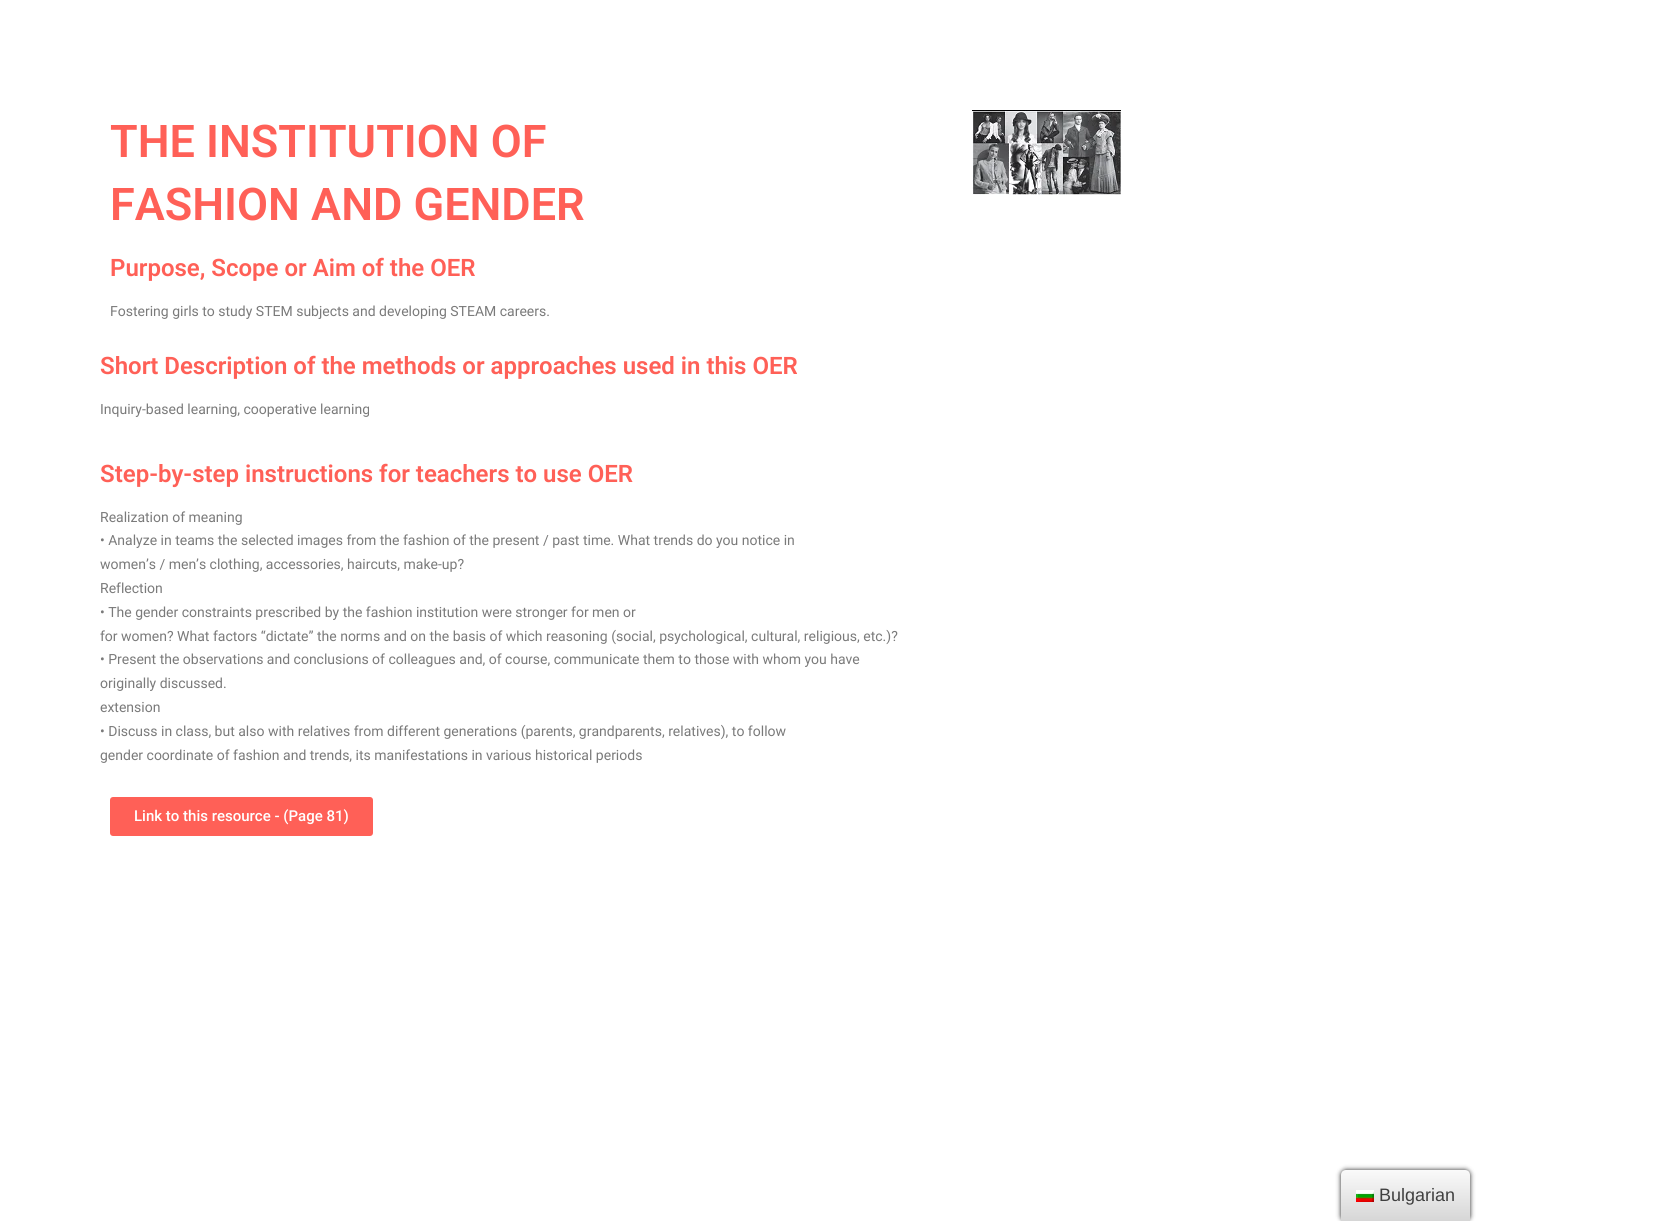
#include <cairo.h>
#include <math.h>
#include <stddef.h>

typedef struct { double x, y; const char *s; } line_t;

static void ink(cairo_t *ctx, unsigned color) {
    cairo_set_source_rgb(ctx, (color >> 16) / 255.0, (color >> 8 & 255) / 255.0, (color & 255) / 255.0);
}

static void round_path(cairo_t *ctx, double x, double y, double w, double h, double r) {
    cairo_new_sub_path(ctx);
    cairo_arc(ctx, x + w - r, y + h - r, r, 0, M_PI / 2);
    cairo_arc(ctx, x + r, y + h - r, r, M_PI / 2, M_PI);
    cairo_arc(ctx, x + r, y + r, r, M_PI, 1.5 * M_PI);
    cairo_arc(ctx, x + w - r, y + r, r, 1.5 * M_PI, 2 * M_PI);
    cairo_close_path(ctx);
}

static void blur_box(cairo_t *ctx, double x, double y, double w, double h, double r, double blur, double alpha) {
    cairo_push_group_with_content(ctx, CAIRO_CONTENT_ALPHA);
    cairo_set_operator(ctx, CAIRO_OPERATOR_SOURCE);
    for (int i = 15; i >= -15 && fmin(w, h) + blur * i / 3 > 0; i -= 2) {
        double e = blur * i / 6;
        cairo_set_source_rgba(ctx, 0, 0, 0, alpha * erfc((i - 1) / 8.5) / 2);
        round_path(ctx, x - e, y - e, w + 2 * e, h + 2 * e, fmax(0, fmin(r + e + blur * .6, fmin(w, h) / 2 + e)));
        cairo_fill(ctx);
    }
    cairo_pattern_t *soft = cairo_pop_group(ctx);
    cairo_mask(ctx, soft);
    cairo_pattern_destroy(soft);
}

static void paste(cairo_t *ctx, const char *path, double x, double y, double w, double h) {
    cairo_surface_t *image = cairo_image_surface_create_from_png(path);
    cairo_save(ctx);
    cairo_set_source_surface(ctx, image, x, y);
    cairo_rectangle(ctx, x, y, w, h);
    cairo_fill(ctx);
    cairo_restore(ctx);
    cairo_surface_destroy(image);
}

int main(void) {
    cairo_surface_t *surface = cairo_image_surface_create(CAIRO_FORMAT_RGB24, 1676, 1221);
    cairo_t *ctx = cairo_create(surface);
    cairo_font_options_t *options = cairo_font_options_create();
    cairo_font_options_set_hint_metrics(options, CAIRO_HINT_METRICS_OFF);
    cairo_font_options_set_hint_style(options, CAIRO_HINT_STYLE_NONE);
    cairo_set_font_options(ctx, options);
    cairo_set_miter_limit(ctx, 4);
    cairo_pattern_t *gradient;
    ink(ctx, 0xFFFFFF);
    cairo_paint(ctx);
    cairo_select_font_face(ctx, "Roboto SemiBold", CAIRO_FONT_SLANT_NORMAL, CAIRO_FONT_WEIGHT_NORMAL);
    cairo_set_font_size(ctx, 45);
    ink(ctx, 0xFF6057);
    cairo_move_to(ctx, 110, 157);
    cairo_show_text(ctx, "THE INSTITUTION OF");
    cairo_move_to(ctx, 110, 220);
    cairo_show_text(ctx, "FASHION AND GENDER");
    cairo_set_font_size(ctx, 24);
    cairo_move_to(ctx, 110, 276);
    cairo_show_text(ctx, "Purpose, Scope or Aim of the OER");
    cairo_select_font_face(ctx, "Roboto", CAIRO_FONT_SLANT_NORMAL, CAIRO_FONT_WEIGHT_NORMAL);
    cairo_set_font_size(ctx, 14);
    ink(ctx, 0x7A7A7A);
    cairo_move_to(ctx, 110, 316);
    cairo_show_text(ctx, "Fostering girls to study STEM subjects and developing STEAM careers.");
    paste(ctx, "media/1.png", 972, 110, 149, 85);
    cairo_select_font_face(ctx, "Roboto SemiBold", CAIRO_FONT_SLANT_NORMAL, CAIRO_FONT_WEIGHT_NORMAL);
    cairo_set_font_size(ctx, 24);
    ink(ctx, 0xFF6057);
    cairo_move_to(ctx, 100, 374);
    cairo_show_text(ctx, "Short Description of the methods or approaches used in this OER");
    cairo_select_font_face(ctx, "Roboto", CAIRO_FONT_SLANT_NORMAL, CAIRO_FONT_WEIGHT_NORMAL);
    cairo_set_font_size(ctx, 14);
    ink(ctx, 0x7A7A7A);
    cairo_move_to(ctx, 100, 414);
    cairo_show_text(ctx, "Inquiry-based learning, cooperative learning");
    cairo_select_font_face(ctx, "Roboto SemiBold", CAIRO_FONT_SLANT_NORMAL, CAIRO_FONT_WEIGHT_NORMAL);
    cairo_set_font_size(ctx, 24);
    ink(ctx, 0xFF6057);
    cairo_move_to(ctx, 100, 482);
    cairo_show_text(ctx, "Step-by-step instructions for teachers to use OER");
    cairo_select_font_face(ctx, "Roboto", CAIRO_FONT_SLANT_NORMAL, CAIRO_FONT_WEIGHT_NORMAL);
    cairo_set_font_size(ctx, 14);
    ink(ctx, 0x7A7A7A);
    {
        static const line_t items[] = {
            {100, 522, "Realization of meaning"},
            {100, 545, "• Analyze in teams the selected images from the fashion of the present / past time. What trends do you notice in"},
            {100, 569, "women’s / men’s clothing, accessories, haircuts, make-up?"},
            {100, 593, "Reflection"},
            {100, 617, "• The gender constraints prescribed by the fashion institution were stronger for men or"},
            {100, 641, "for women? What factors “dictate” the norms and on the basis of which reasoning (social, psychological, cultural, religious, etc.)?"},
            {100, 664, "• Present the observations and conclusions of colleagues and, of course, communicate them to those with whom you have"},
            {100, 688, "originally discussed."},
            {100, 712, "extension"},
            {100, 736, "• Discuss in class, but also with relatives from different generations (parents, grandparents, relatives), to follow"},
            {100, 760, "gender coordinate of fashion and trends, its manifestations in various historical periods"},
        };
        for (size_t i = 0; i < sizeof items / sizeof *items; i++) {
            cairo_move_to(ctx, items[i].x, items[i].y);
            cairo_show_text(ctx, items[i].s);
        }
    }
    ink(ctx, 0xFF6057);
    round_path(ctx, 110, 797, 263, 39, 3);
    cairo_fill(ctx);
    cairo_select_font_face(ctx, "Roboto Medium", CAIRO_FONT_SLANT_NORMAL, CAIRO_FONT_WEIGHT_NORMAL);
    cairo_set_font_size(ctx, 15);
    ink(ctx, 0xFFFFFF);
    cairo_move_to(ctx, 134, 821);
    cairo_show_text(ctx, "Link to this resource - (Page 81)");
    ink(ctx, 0x212121);
    blur_box(ctx, 1341, 1170, 129, 51, 5, 2.5, 1);
    gradient = cairo_pattern_create_linear(1406, 1221, 1406, 1170);
    cairo_pattern_add_color_stop_rgba(gradient, 0, 0.839, 0.839, 0.839, 1);
    cairo_pattern_add_color_stop_rgba(gradient, 1, 0.98, 0.98, 0.98, 1);
    cairo_set_source(ctx, gradient);
    cairo_pattern_destroy(gradient);
    cairo_new_path(ctx);
    cairo_move_to(ctx, 1346, 1170);
    cairo_line_to(ctx, 1465, 1170);
    cairo_curve_to(ctx, 1468, 1170, 1470, 1172, 1470, 1175);
    cairo_line_to(ctx, 1470, 1221);
    cairo_line_to(ctx, 1341, 1221);
    cairo_line_to(ctx, 1341, 1175);
    cairo_curve_to(ctx, 1341, 1172, 1343, 1170, 1346, 1170);
    cairo_close_path(ctx);
    cairo_fill(ctx);
    paste(ctx, "media/2.png", 1356, 1190, 18, 12);
    cairo_select_font_face(ctx, "Liberation Sans", CAIRO_FONT_SLANT_NORMAL, CAIRO_FONT_WEIGHT_NORMAL);
    cairo_set_font_size(ctx, 18);
    ink(ctx, 0x404040);
    cairo_move_to(ctx, 1379, 1201);
    cairo_show_text(ctx, "Bulgarian");
    cairo_surface_write_to_png(surface, "image.png");
    cairo_font_options_destroy(options);
    cairo_destroy(ctx);
    cairo_surface_destroy(surface);
    return 0;
}
